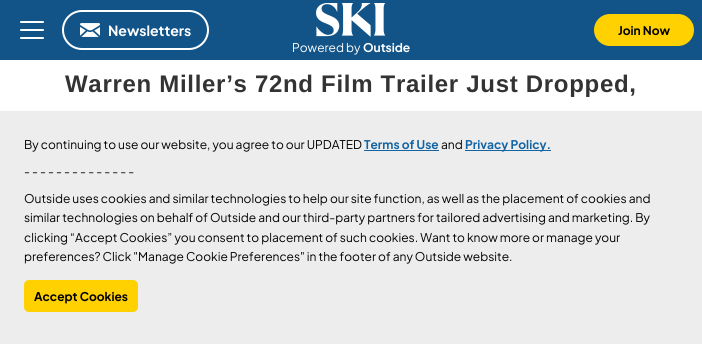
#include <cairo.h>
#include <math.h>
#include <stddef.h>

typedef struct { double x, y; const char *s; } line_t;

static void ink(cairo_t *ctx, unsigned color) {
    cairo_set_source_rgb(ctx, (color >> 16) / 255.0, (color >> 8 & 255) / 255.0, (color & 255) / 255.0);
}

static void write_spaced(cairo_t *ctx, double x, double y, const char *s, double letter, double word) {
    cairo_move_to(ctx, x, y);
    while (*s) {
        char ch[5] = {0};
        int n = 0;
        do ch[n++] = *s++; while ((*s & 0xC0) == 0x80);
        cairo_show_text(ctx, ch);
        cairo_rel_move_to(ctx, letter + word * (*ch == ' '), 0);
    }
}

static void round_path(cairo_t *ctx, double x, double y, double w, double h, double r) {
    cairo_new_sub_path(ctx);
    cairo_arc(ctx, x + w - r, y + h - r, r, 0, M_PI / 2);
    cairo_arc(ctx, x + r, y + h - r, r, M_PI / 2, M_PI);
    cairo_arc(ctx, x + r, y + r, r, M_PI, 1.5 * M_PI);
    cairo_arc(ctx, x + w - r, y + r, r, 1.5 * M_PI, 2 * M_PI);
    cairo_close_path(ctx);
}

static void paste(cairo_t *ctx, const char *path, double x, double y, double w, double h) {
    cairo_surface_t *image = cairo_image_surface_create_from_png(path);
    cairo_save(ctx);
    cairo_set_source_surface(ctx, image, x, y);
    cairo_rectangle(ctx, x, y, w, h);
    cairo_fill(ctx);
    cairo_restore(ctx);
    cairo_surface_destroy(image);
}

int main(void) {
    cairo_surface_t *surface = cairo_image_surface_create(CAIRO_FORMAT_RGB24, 702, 344);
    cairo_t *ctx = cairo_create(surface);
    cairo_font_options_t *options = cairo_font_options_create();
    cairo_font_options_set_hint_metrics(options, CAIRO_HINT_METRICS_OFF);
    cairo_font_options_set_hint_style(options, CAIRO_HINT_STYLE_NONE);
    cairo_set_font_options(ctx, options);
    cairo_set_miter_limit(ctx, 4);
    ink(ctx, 0xFFFFFF);
    cairo_paint(ctx);
    ink(ctx, 0x125488);
    cairo_rectangle(ctx, 0, 0, 702, 60);
    cairo_fill(ctx);
    ink(ctx, 0xFFFFFF);
    round_path(ctx, 20, 21, 24, 2, 1);
    cairo_fill(ctx);
    round_path(ctx, 20, 29, 24, 2, 1);
    cairo_fill(ctx);
    round_path(ctx, 20, 37, 24, 2, 1);
    cairo_fill(ctx);
    round_path(ctx, 63, 11, 145, 38, 19);
    cairo_stroke(ctx);
    paste(ctx, "media/1.png", 80, 23, 20, 14);
    cairo_select_font_face(ctx, "Plus Jakarta Sans", CAIRO_FONT_SLANT_NORMAL, CAIRO_FONT_WEIGHT_BOLD);
    cairo_set_font_size(ctx, 14);
    cairo_move_to(ctx, 108, 36);
    cairo_show_text(ctx, "Newsletters");
    ink(ctx, 0xFFD100);
    round_path(ctx, 594, 14, 100, 32, 16);
    cairo_fill(ctx);
    cairo_set_font_size(ctx, 12);
    ink(ctx, 0x000000);
    cairo_move_to(ctx, 618, 35);
    cairo_show_text(ctx, "Join Now");
    paste(ctx, "media/2.png", 316, 3, 70, 34);
    cairo_select_font_face(ctx, "Plus Jakarta Sans", CAIRO_FONT_SLANT_NORMAL, CAIRO_FONT_WEIGHT_NORMAL);
    ink(ctx, 0xFFFFFF);
    cairo_move_to(ctx, 292, 52);
    cairo_show_text(ctx, "Powered by");
    cairo_select_font_face(ctx, "Plus Jakarta Sans", CAIRO_FONT_SLANT_NORMAL, CAIRO_FONT_WEIGHT_BOLD);
    cairo_move_to(ctx, 363, 52);
    cairo_show_text(ctx, "Outside");
    cairo_select_font_face(ctx, "Liberation Sans", CAIRO_FONT_SLANT_NORMAL, CAIRO_FONT_WEIGHT_BOLD);
    cairo_set_font_size(ctx, 24);
    ink(ctx, 0x333333);
    write_spaced(ctx, 65, 92, "Warren Miller’s 72nd Film Trailer Just Dropped,", 0.7, 0);
    ink(ctx, 0xEDEDED);
    cairo_rectangle(ctx, 0, 111, 702, 233);
    cairo_fill(ctx);
    cairo_select_font_face(ctx, "Plus Jakarta Sans", CAIRO_FONT_SLANT_NORMAL, CAIRO_FONT_WEIGHT_NORMAL);
    cairo_set_font_size(ctx, 12);
    ink(ctx, 0x000000);
    cairo_move_to(ctx, 24, 149);
    cairo_show_text(ctx, "By continuing to use our website, you agree to our UPDATED");
    cairo_select_font_face(ctx, "Plus Jakarta Sans", CAIRO_FONT_SLANT_NORMAL, CAIRO_FONT_WEIGHT_BOLD);
    ink(ctx, 0x1264A3);
    cairo_move_to(ctx, 364, 149);
    cairo_show_text(ctx, "Terms of Use");
    cairo_rectangle(ctx, 364, 150, 75, 1);
    cairo_fill(ctx);
    cairo_select_font_face(ctx, "Plus Jakarta Sans", CAIRO_FONT_SLANT_NORMAL, CAIRO_FONT_WEIGHT_NORMAL);
    ink(ctx, 0x000000);
    cairo_move_to(ctx, 441, 149);
    cairo_show_text(ctx, "and");
    ink(ctx, 0x1264A3);
    cairo_rectangle(ctx, 465, 150, 86, 1);
    cairo_fill(ctx);
    cairo_select_font_face(ctx, "Plus Jakarta Sans", CAIRO_FONT_SLANT_NORMAL, CAIRO_FONT_WEIGHT_BOLD);
    cairo_move_to(ctx, 465, 149);
    cairo_show_text(ctx, "Privacy Policy.");
    cairo_select_font_face(ctx, "Plus Jakarta Sans", CAIRO_FONT_SLANT_NORMAL, CAIRO_FONT_WEIGHT_NORMAL);
    ink(ctx, 0x000000);
    {
        static const line_t items[] = {
            {24, 176, "- - - - - - - - - - - - - -"},
            {24, 203, "Outside uses cookies and similar technologies to help our site function, as well as the placement of cookies and"},
            {24, 222, "similar technologies on behalf of Outside and our third-party partners for tailored advertising and marketing. By"},
            {24, 242, "clicking “Accept Cookies” you consent to placement of such cookies. Want to know more or manage your"},
            {24, 261, "preferences? Click \"Manage Cookie Preferences\" in the footer of any Outside website."},
        };
        for (size_t i = 0; i < sizeof items / sizeof *items; i++) {
            cairo_move_to(ctx, items[i].x, items[i].y);
            cairo_show_text(ctx, items[i].s);
        }
    }
    ink(ctx, 0xFFD100);
    round_path(ctx, 24, 280, 114, 32, 5);
    cairo_fill(ctx);
    cairo_select_font_face(ctx, "Plus Jakarta Sans", CAIRO_FONT_SLANT_NORMAL, CAIRO_FONT_WEIGHT_BOLD);
    ink(ctx, 0x000000);
    cairo_move_to(ctx, 34, 301);
    cairo_show_text(ctx, "Accept Cookies");
    cairo_surface_write_to_png(surface, "image.png");
    cairo_font_options_destroy(options);
    cairo_destroy(ctx);
    cairo_surface_destroy(surface);
    return 0;
}
